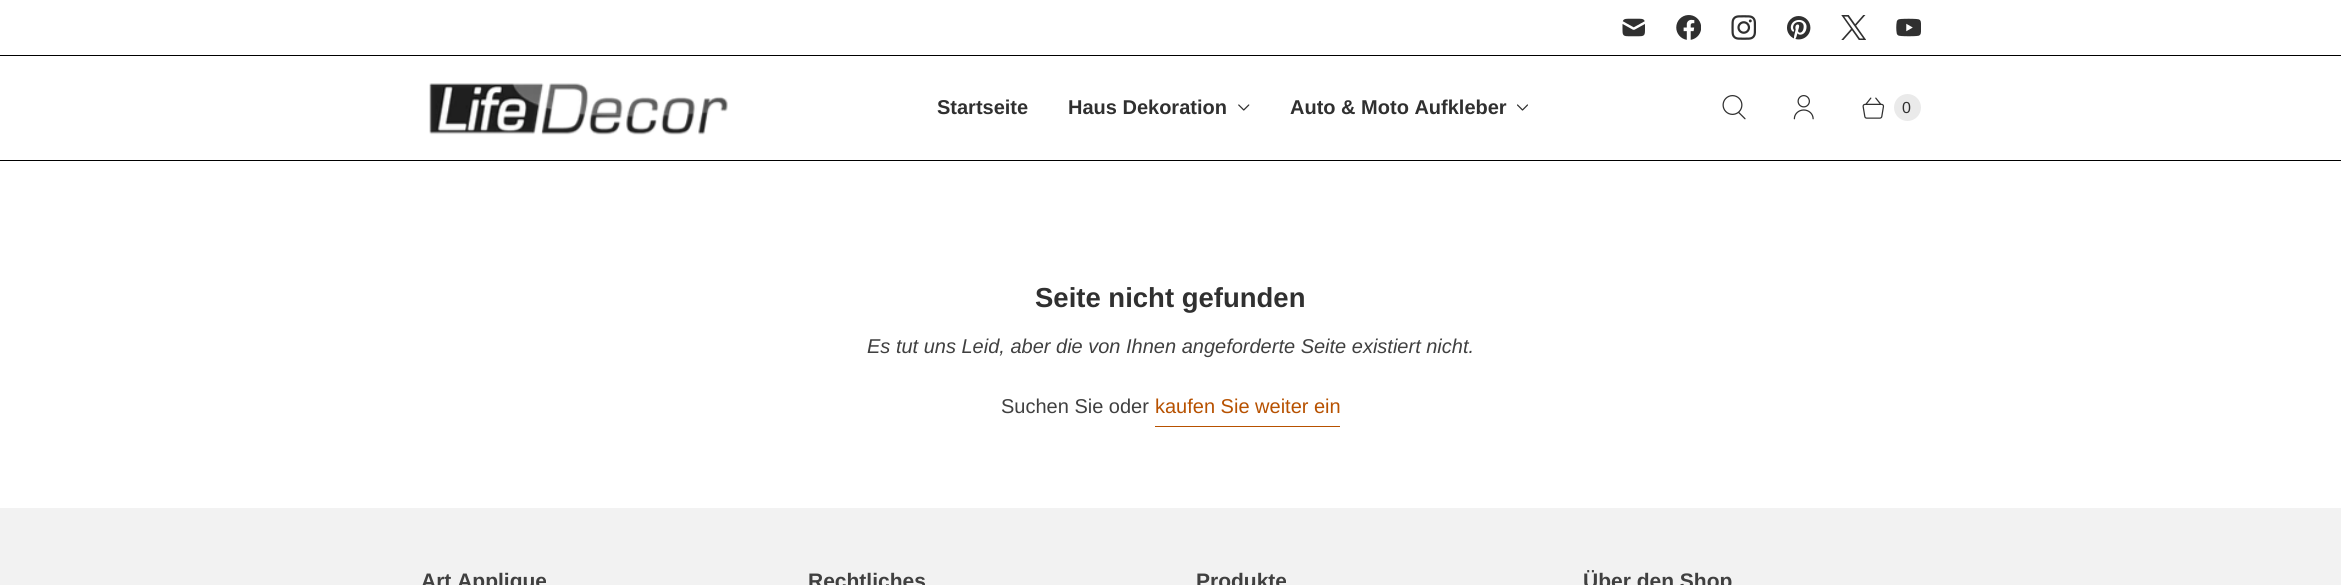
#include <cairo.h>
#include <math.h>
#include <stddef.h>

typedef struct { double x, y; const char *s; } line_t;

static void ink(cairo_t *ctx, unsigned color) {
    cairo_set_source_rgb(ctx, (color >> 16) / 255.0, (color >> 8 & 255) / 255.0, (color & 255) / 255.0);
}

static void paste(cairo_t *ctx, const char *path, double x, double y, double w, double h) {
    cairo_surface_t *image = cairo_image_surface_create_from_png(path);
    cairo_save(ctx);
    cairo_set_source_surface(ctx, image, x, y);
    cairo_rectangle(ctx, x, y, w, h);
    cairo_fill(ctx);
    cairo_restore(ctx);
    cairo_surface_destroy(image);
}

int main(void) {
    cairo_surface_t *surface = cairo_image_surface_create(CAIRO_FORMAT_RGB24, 2341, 585);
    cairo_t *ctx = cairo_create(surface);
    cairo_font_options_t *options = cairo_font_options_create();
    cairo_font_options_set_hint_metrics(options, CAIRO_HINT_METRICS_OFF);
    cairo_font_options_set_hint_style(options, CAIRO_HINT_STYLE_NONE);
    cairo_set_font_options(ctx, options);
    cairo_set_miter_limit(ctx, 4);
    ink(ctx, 0xFFFFFF);
    cairo_paint(ctx);
    ink(ctx, 0x000000);
    cairo_rectangle(ctx, 0, 55, 2341, 1);
    cairo_fill(ctx);
    paste(ctx, "media/1.png", 1622, 18, 23, 19);
    paste(ctx, "media/2.png", 1676, 15, 25, 25);
    paste(ctx, "media/3.png", 1731, 15, 25, 25);
    paste(ctx, "media/4.png", 1787, 16, 24, 24);
    paste(ctx, "media/5.png", 1841, 15, 25, 25);
    paste(ctx, "media/6.png", 1896, 18, 25, 19);
    cairo_rectangle(ctx, 0, 160, 2341, 1);
    cairo_fill(ctx);
    paste(ctx, "media/7.png", 429, 83, 299, 52);
    cairo_select_font_face(ctx, "Liberation Sans", CAIRO_FONT_SLANT_NORMAL, CAIRO_FONT_WEIGHT_BOLD);
    cairo_set_font_size(ctx, 20);
    ink(ctx, 0x303030);
    cairo_move_to(ctx, 937, 114);
    cairo_show_text(ctx, "Startseite");
    cairo_move_to(ctx, 1068, 114);
    cairo_show_text(ctx, "Haus Dekoration");
    paste(ctx, "media/8.png", 1238, 104, 12, 7);
    cairo_move_to(ctx, 1290, 114);
    cairo_show_text(ctx, "Auto & Moto Aufkleber");
    paste(ctx, "media/9.png", 1517, 104, 11, 7);
    paste(ctx, "media/10.png", 1722, 95, 24, 25);
    paste(ctx, "media/11.png", 1793, 95, 21, 25);
    paste(ctx, "media/12.png", 1862, 97, 23, 22);
    ink(ctx, 0xEAEAEA);
    cairo_arc(ctx, 1907.5, 107.5, 13.5, 0, 2 * M_PI);
    cairo_fill(ctx);
    cairo_select_font_face(ctx, "Liberation Sans", CAIRO_FONT_SLANT_NORMAL, CAIRO_FONT_WEIGHT_NORMAL);
    cairo_set_font_size(ctx, 16);
    ink(ctx, 0x303030);
    cairo_move_to(ctx, 1902, 113);
    cairo_show_text(ctx, "0");
    cairo_select_font_face(ctx, "Liberation Sans", CAIRO_FONT_SLANT_NORMAL, CAIRO_FONT_WEIGHT_BOLD);
    cairo_set_font_size(ctx, 27.5);
    cairo_move_to(ctx, 1035, 307);
    cairo_show_text(ctx, "Seite nicht gefunden");
    cairo_select_font_face(ctx, "Liberation Sans", CAIRO_FONT_SLANT_ITALIC, CAIRO_FONT_WEIGHT_NORMAL);
    cairo_set_font_size(ctx, 20);
    ink(ctx, 0x404040);
    cairo_move_to(ctx, 867, 353);
    cairo_show_text(ctx, "Es tut uns Leid, aber die von Ihnen angeforderte Seite existiert nicht.");
    cairo_select_font_face(ctx, "Liberation Sans", CAIRO_FONT_SLANT_NORMAL, CAIRO_FONT_WEIGHT_NORMAL);
    cairo_move_to(ctx, 1001, 413);
    cairo_show_text(ctx, "Suchen Sie oder");
    ink(ctx, 0xB75100);
    cairo_move_to(ctx, 1155, 413);
    cairo_show_text(ctx, "kaufen Sie weiter ein");
    cairo_rectangle(ctx, 1155, 426, 185, 1);
    cairo_fill(ctx);
    ink(ctx, 0xF2F2F2);
    cairo_rectangle(ctx, 0, 508, 2341, 77);
    cairo_fill(ctx);
    cairo_select_font_face(ctx, "Liberation Sans", CAIRO_FONT_SLANT_NORMAL, CAIRO_FONT_WEIGHT_BOLD);
    cairo_set_font_size(ctx, 21);
    ink(ctx, 0x404040);
    {
        static const line_t items[] = {
            {421, 588, "Art Applique"},
            {808, 588, "Rechtliches"},
            {1196, 588, "Produkte"},
            {1583, 588, "Über den Shop"},
        };
        for (size_t i = 0; i < sizeof items / sizeof *items; i++) {
            cairo_move_to(ctx, items[i].x, items[i].y);
            cairo_show_text(ctx, items[i].s);
        }
    }
    cairo_surface_write_to_png(surface, "image.png");
    cairo_font_options_destroy(options);
    cairo_destroy(ctx);
    cairo_surface_destroy(surface);
    return 0;
}
